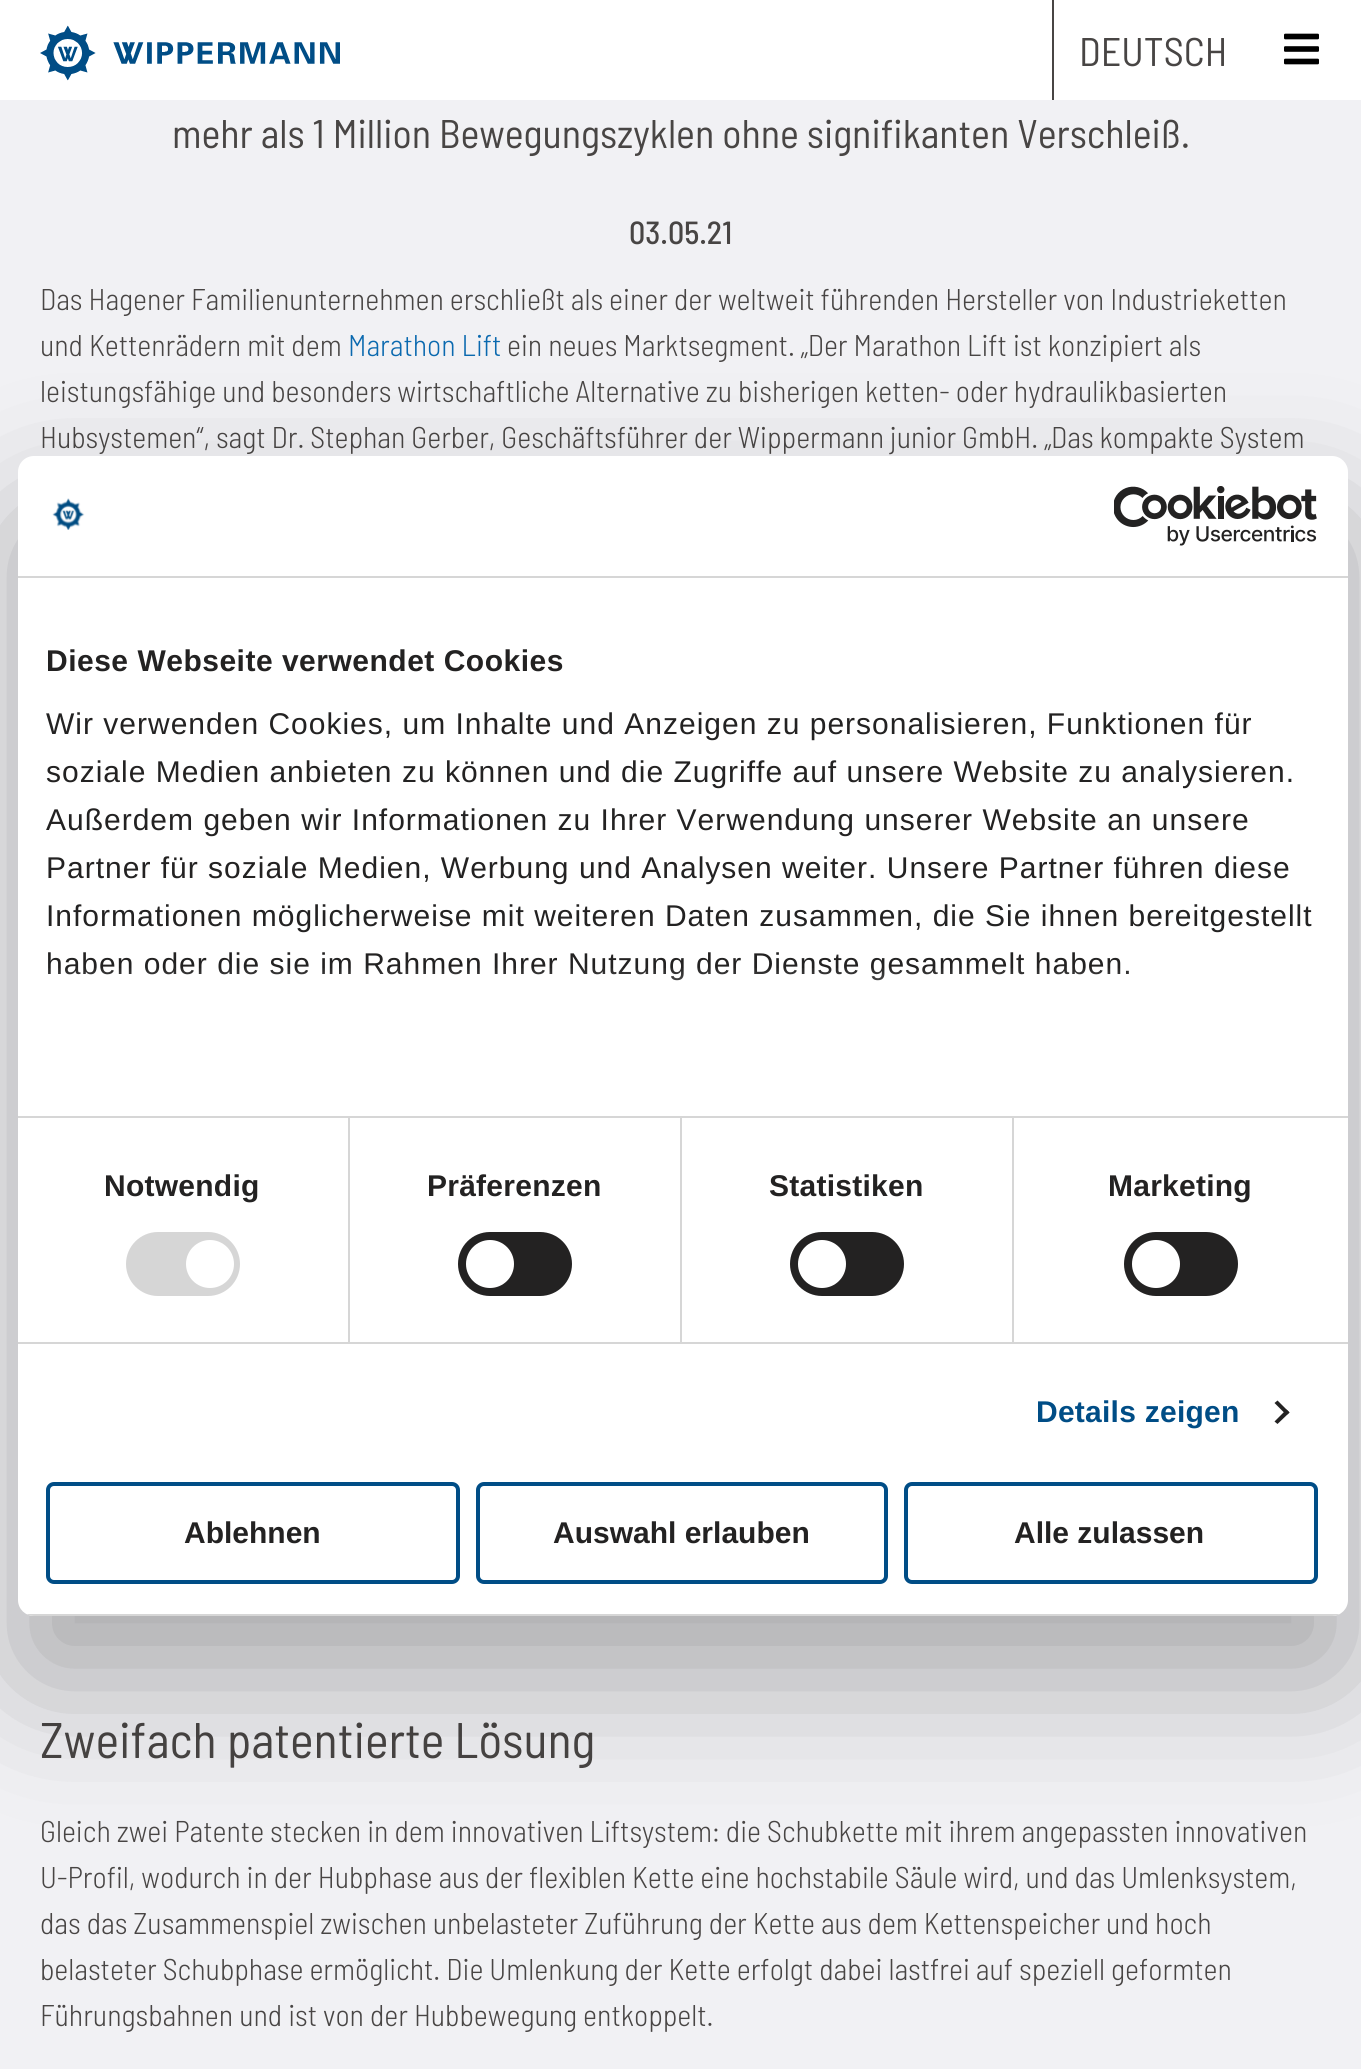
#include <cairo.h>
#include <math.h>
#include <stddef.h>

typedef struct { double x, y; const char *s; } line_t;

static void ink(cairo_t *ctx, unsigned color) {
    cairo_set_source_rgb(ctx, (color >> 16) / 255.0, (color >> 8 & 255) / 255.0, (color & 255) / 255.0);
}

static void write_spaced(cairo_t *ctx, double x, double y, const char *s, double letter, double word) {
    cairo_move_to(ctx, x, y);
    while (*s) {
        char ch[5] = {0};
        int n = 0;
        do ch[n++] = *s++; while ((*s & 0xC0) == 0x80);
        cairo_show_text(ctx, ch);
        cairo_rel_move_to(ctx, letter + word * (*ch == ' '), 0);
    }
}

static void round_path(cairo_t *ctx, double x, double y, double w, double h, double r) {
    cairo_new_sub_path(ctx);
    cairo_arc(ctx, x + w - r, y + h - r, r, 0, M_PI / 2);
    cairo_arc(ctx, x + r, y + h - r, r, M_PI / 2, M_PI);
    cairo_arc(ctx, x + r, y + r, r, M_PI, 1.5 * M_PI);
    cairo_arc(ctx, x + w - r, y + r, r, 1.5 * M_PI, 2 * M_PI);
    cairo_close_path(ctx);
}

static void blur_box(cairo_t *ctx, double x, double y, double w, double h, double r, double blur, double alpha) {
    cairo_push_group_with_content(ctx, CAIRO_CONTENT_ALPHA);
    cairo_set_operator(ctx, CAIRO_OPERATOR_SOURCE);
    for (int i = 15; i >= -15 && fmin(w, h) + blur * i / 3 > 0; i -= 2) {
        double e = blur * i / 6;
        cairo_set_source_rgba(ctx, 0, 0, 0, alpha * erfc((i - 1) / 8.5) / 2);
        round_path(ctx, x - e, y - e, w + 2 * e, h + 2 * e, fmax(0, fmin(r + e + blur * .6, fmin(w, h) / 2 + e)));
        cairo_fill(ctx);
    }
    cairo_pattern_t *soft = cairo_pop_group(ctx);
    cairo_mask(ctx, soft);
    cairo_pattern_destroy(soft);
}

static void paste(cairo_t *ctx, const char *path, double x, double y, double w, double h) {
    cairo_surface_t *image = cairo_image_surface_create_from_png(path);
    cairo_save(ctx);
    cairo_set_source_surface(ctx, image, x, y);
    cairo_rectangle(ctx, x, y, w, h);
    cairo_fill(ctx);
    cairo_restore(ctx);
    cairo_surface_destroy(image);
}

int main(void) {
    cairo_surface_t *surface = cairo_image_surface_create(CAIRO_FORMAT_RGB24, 1361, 2069);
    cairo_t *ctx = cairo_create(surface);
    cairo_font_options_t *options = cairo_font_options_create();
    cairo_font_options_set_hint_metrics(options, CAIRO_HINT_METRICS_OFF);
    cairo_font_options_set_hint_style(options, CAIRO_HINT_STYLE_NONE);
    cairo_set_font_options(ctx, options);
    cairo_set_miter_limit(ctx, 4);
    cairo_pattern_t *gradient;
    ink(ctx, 0xF1F1F4);
    cairo_paint(ctx);
    ink(ctx, 0xFFFFFF);
    cairo_rectangle(ctx, 0, 0, 1361, 100);
    cairo_fill(ctx);
    paste(ctx, "media/1.png", 40, 25, 300, 56);
    ink(ctx, 0x484544);
    cairo_rectangle(ctx, 1052, 0, 2, 100);
    cairo_fill(ctx);
    cairo_select_font_face(ctx, "Barlow Semi Condensed", CAIRO_FONT_SLANT_NORMAL, CAIRO_FONT_WEIGHT_NORMAL);
    cairo_set_font_size(ctx, 40);
    cairo_move_to(ctx, 1079, 66);
    cairo_show_text(ctx, "DEUTSCH");
    paste(ctx, "media/2.png", 1284, 33, 35, 32);
    cairo_move_to(ctx, 172, 148);
    cairo_show_text(ctx, "mehr als 1 Million Bewegungszyklen ohne signifikanten Verschleiß.");
    cairo_select_font_face(ctx, "Barlow Semi Condensed Medium", CAIRO_FONT_SLANT_NORMAL, CAIRO_FONT_WEIGHT_NORMAL);
    cairo_set_font_size(ctx, 32);
    cairo_move_to(ctx, 629, 244);
    cairo_show_text(ctx, "03.05.21");
    cairo_select_font_face(ctx, "Barlow Semi Condensed Light", CAIRO_FONT_SLANT_NORMAL, CAIRO_FONT_WEIGHT_NORMAL);
    cairo_set_font_size(ctx, 30);
    cairo_move_to(ctx, 40, 310);
    cairo_show_text(ctx, "Das Hagener Familienunternehmen erschließt als einer der weltweit führenden Hersteller von Industrieketten");
    cairo_move_to(ctx, 40, 356);
    cairo_show_text(ctx, "und Kettenrädern mit dem");
    ink(ctx, 0x0A69AF);
    cairo_move_to(ctx, 348, 356);
    cairo_show_text(ctx, "Marathon Lift");
    ink(ctx, 0x484544);
    {
        static const line_t items[] = {
            {507, 356, "ein neues Marktsegment. „Der Marathon Lift ist konzipiert als"},
            {40, 402, "leistungsfähige und besonders wirtschaftliche Alternative zu bisherigen ketten- oder hydraulikbasierten"},
            {40, 448, "Hubsystemen“, sagt Dr. Stephan Gerber, Geschäftsführer der Wippermann junior GmbH. „Das kompakte System"},
        };
        for (size_t i = 0; i < sizeof items / sizeof *items; i++) {
            cairo_move_to(ctx, items[i].x, items[i].y);
            cairo_show_text(ctx, items[i].s);
        }
    }
    cairo_select_font_face(ctx, "Barlow Semi Condensed", CAIRO_FONT_SLANT_NORMAL, CAIRO_FONT_WEIGHT_NORMAL);
    cairo_set_font_size(ctx, 50);
    cairo_move_to(ctx, 40, 1758);
    cairo_show_text(ctx, "Zweifach patentierte Lösung");
    cairo_select_font_face(ctx, "Barlow Semi Condensed Light", CAIRO_FONT_SLANT_NORMAL, CAIRO_FONT_WEIGHT_NORMAL);
    cairo_set_font_size(ctx, 30);
    {
        static const line_t items[] = {
            {40, 1842, "Gleich zwei Patente stecken in dem innovativen Liftsystem: die Schubkette mit ihrem angepassten innovativen"},
            {40, 1888, "U-Profil, wodurch in der Hubphase aus der flexiblen Kette eine hochstabile Säule wird, und das Umlenksystem,"},
            {40, 1934, "das das Zusammenspiel zwischen unbelasteter Zuführung der Kette aus dem Kettenspeicher und hoch"},
            {40, 1980, "belasteter Schubphase ermöglicht. Die Umlenkung der Kette erfolgt dabei lastfrei auf speziell geformten"},
            {40, 2026, "Führungsbahnen und ist von der Hubbewegung entkoppelt."},
        };
        for (size_t i = 0; i < sizeof items / sizeof *items; i++) {
            cairo_move_to(ctx, items[i].x, items[i].y);
            cairo_show_text(ctx, items[i].s);
        }
    }
    ink(ctx, 0x000000);
    blur_box(ctx, 18, 520, 1330, 1160, 16, 68, 0.3);
    ink(ctx, 0xFFFFFF);
    round_path(ctx, 18, 456, 1330, 1160, 16);
    cairo_fill(ctx);
    ink(ctx, 0xD6D6D6);
    cairo_rectangle(ctx, 18, 576, 1330, 2);
    cairo_fill(ctx);
    paste(ctx, "media/3.png", 52, 498, 33, 32);
    paste(ctx, "media/4.png", 1114, 486, 203, 60);
    cairo_rectangle(ctx, 18, 1116, 1330, 2);
    cairo_fill(ctx);
    cairo_select_font_face(ctx, "Liberation Sans", CAIRO_FONT_SLANT_NORMAL, CAIRO_FONT_WEIGHT_BOLD);
    ink(ctx, 0x232222);
    write_spaced(ctx, 46, 671, "Diese Webseite verwendet Cookies", 0.5, 0);
    cairo_select_font_face(ctx, "Liberation Sans", CAIRO_FONT_SLANT_NORMAL, CAIRO_FONT_WEIGHT_NORMAL);
    {
        static const line_t items[] = {
            {46, 734, "Wir verwenden Cookies, um Inhalte und Anzeigen zu personalisieren, Funktionen für"},
            {46, 782, "soziale Medien anbieten zu können und die Zugriffe auf unsere Website zu analysieren."},
            {46, 830, "Außerdem geben wir Informationen zu Ihrer Verwendung unserer Website an unsere"},
            {46, 878, "Partner für soziale Medien, Werbung und Analysen weiter. Unsere Partner führen diese"},
            {46, 926, "Informationen möglicherweise mit weiteren Daten zusammen, die Sie ihnen bereitgestellt"},
            {46, 974, "haben oder die sie im Rahmen Ihrer Nutzung der Dienste gesammelt haben."},
        };
        for (size_t i = 0; i < sizeof items / sizeof *items; i++) {
            write_spaced(ctx, items[i].x, items[i].y, items[i].s, 1, 0);
        }
    }
    gradient = cairo_pattern_create_linear(669, 1116, 669, 966);
    cairo_pattern_add_color_stop_rgba(gradient, 0, 1, 1, 1, 1);
    cairo_pattern_add_color_stop_rgba(gradient, 0.5, 1, 1, 1, 0.8);
    cairo_pattern_add_color_stop_rgba(gradient, 1, 1, 1, 1, 0);
    cairo_set_source(ctx, gradient);
    cairo_pattern_destroy(gradient);
    cairo_rectangle(ctx, 48, 968, 1081, 13);
    cairo_fill(ctx);
    ink(ctx, 0xD6D6D6);
    cairo_rectangle(ctx, 18, 1342, 1330, 2);
    cairo_fill(ctx);
    cairo_rectangle(ctx, 348, 1118, 2, 224);
    cairo_fill(ctx);
    cairo_select_font_face(ctx, "Liberation Sans", CAIRO_FONT_SLANT_NORMAL, CAIRO_FONT_WEIGHT_BOLD);
    ink(ctx, 0x232222);
    write_spaced(ctx, 104, 1196, "Notwendig", 0.25, 0);
    ink(ctx, 0xD6D6D6);
    round_path(ctx, 126, 1232, 114, 64, 32);
    cairo_fill(ctx);
    ink(ctx, 0xFFFFFF);
    cairo_arc(ctx, 210, 1264, 24, 0, 2 * M_PI);
    cairo_fill(ctx);
    ink(ctx, 0xD6D6D6);
    cairo_rectangle(ctx, 680, 1118, 2, 224);
    cairo_fill(ctx);
    ink(ctx, 0x232222);
    write_spaced(ctx, 427, 1196, "Präferenzen", 0.25, 0);
    round_path(ctx, 458, 1232, 114, 64, 32);
    cairo_fill(ctx);
    ink(ctx, 0xFFFFFF);
    cairo_arc(ctx, 490, 1264, 24, 0, 2 * M_PI);
    cairo_fill(ctx);
    ink(ctx, 0xD6D6D6);
    cairo_rectangle(ctx, 1012, 1118, 2, 224);
    cairo_fill(ctx);
    ink(ctx, 0x232222);
    write_spaced(ctx, 769, 1196, "Statistiken", 0.25, 0);
    round_path(ctx, 790, 1232, 114, 64, 32);
    cairo_fill(ctx);
    ink(ctx, 0xFFFFFF);
    cairo_arc(ctx, 822, 1264, 24, 0, 2 * M_PI);
    cairo_fill(ctx);
    ink(ctx, 0x232222);
    write_spaced(ctx, 1108, 1196, "Marketing", 0.25, 0);
    round_path(ctx, 1124, 1232, 114, 64, 32);
    cairo_fill(ctx);
    ink(ctx, 0xFFFFFF);
    cairo_arc(ctx, 1156, 1264, 24, 0, 2 * M_PI);
    cairo_fill(ctx);
    ink(ctx, 0x004D86);
    write_spaced(ctx, 1036, 1422, "Details zeigen", 0.25, 0);
    ink(ctx, 0x232222);
    cairo_new_path(ctx);
    cairo_move_to(ctx, 1277.5, 1400.5);
    cairo_line_to(ctx, 1289.5, 1412.5);
    cairo_line_to(ctx, 1286.5, 1415);
    cairo_line_to(ctx, 1274.5, 1403);
    cairo_close_path(ctx);
    cairo_fill(ctx);
    cairo_new_path(ctx);
    cairo_move_to(ctx, 1286.5, 1409.5);
    cairo_line_to(ctx, 1289.5, 1412.5);
    cairo_line_to(ctx, 1277.5, 1424);
    cairo_line_to(ctx, 1274.5, 1421.5);
    cairo_close_path(ctx);
    cairo_fill(ctx);
    cairo_save(ctx);
    round_path(ctx, 18, 456, 1330, 1160, 16);
    cairo_clip(ctx);
    ink(ctx, 0xD6D6D6);
    cairo_rectangle(ctx, 18, 1614, 1330, 2);
    cairo_fill(ctx);
    cairo_restore(ctx);
    round_path(ctx, 48, 1484, 410, 98, 6);
    ink(ctx, 0x004D86);
    cairo_set_line_width(ctx, 4);
    cairo_stroke(ctx);
    ink(ctx, 0x232222);
    cairo_move_to(ctx, 184, 1543);
    cairo_show_text(ctx, "Ablehnen");
    round_path(ctx, 478, 1484, 408, 98, 6);
    ink(ctx, 0x004D86);
    cairo_stroke(ctx);
    ink(ctx, 0x232222);
    cairo_move_to(ctx, 553, 1543);
    cairo_show_text(ctx, "Auswahl erlauben");
    round_path(ctx, 906, 1484, 410, 98, 6);
    ink(ctx, 0x004D86);
    cairo_stroke(ctx);
    ink(ctx, 0x232222);
    cairo_move_to(ctx, 1014, 1543);
    cairo_show_text(ctx, "Alle zulassen");
    cairo_surface_write_to_png(surface, "image.png");
    cairo_font_options_destroy(options);
    cairo_destroy(ctx);
    cairo_surface_destroy(surface);
    return 0;
}
